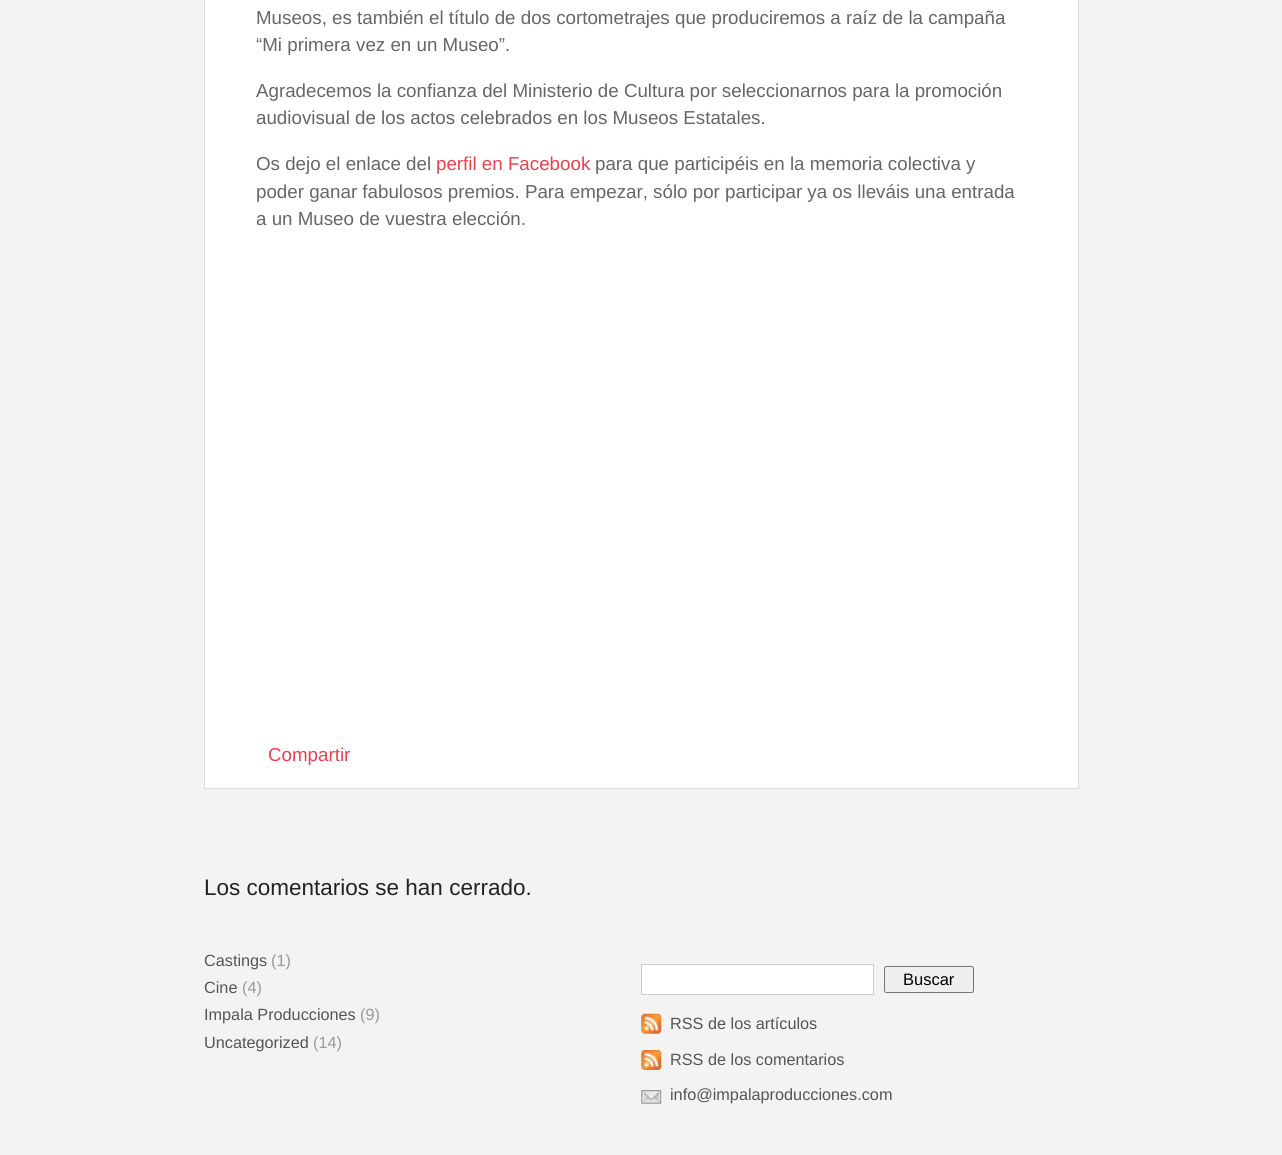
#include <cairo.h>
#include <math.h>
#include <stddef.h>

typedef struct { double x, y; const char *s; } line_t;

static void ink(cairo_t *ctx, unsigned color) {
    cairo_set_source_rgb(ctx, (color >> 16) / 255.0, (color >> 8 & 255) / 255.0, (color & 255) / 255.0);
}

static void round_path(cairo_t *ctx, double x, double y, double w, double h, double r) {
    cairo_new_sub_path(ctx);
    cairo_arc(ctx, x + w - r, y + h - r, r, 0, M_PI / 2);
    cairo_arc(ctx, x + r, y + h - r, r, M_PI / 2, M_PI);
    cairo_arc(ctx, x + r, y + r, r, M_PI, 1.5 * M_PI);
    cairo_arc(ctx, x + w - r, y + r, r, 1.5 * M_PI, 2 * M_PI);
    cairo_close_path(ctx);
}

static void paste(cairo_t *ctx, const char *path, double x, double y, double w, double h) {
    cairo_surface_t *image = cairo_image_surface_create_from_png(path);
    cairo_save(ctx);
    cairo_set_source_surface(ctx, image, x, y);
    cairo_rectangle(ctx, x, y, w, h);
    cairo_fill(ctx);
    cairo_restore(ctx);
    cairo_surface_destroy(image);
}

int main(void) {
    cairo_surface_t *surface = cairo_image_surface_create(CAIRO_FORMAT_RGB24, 1282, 1155);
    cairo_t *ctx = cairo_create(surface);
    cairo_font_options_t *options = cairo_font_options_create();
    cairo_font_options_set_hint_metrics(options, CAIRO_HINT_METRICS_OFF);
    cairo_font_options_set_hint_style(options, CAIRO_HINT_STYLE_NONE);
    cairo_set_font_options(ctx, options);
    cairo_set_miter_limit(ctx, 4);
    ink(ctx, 0xF3F3F3);
    cairo_paint(ctx);
    ink(ctx, 0xFFFFFF);
    cairo_rectangle(ctx, 204.5, -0.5, 874, 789);
    cairo_fill_preserve(ctx);
    ink(ctx, 0xDDDDDD);
    cairo_set_line_width(ctx, 1);
    cairo_stroke(ctx);
    cairo_select_font_face(ctx, "Liberation Sans", CAIRO_FONT_SLANT_NORMAL, CAIRO_FONT_WEIGHT_NORMAL);
    cairo_set_font_size(ctx, 18.75);
    ink(ctx, 0x666666);
    {
        static const line_t items[] = {
            {256, 24, "Museos, es también el título de dos cortometrajes que produciremos a raíz de la campaña"},
            {256, 51, "“Mi primera vez en un Museo”."},
            {256, 97, "Agradecemos la confianza del Ministerio de Cultura por seleccionarnos para la promoción"},
            {256, 124, "audiovisual de los actos celebrados en los Museos Estatales."},
            {256, 170, "Os dejo el enlace del"},
        };
        for (size_t i = 0; i < sizeof items / sizeof *items; i++) {
            cairo_move_to(ctx, items[i].x, items[i].y);
            cairo_show_text(ctx, items[i].s);
        }
    }
    ink(ctx, 0xEF3F4A);
    cairo_move_to(ctx, 436, 170);
    cairo_show_text(ctx, "perfil en Facebook");
    ink(ctx, 0x666666);
    {
        static const line_t items[] = {
            {595, 170, "para que participéis en la memoria colectiva y"},
            {256, 198, "poder ganar fabulosos premios. Para empezar, sólo por participar ya os lleváis una entrada"},
            {256, 225, "a un Museo de vuestra elección."},
        };
        for (size_t i = 0; i < sizeof items / sizeof *items; i++) {
            cairo_move_to(ctx, items[i].x, items[i].y);
            cairo_show_text(ctx, items[i].s);
        }
    }
    ink(ctx, 0xEF3F4A);
    cairo_move_to(ctx, 268, 761);
    cairo_show_text(ctx, "Compartir");
    cairo_set_font_size(ctx, 22.5);
    ink(ctx, 0x222222);
    cairo_move_to(ctx, 204, 895);
    cairo_show_text(ctx, "Los comentarios se han cerrado.");
    cairo_set_font_size(ctx, 16.25);
    ink(ctx, 0x555555);
    cairo_move_to(ctx, 204, 966);
    cairo_show_text(ctx, "Castings");
    ink(ctx, 0x999999);
    cairo_move_to(ctx, 271, 966);
    cairo_show_text(ctx, "(1)");
    ink(ctx, 0x555555);
    cairo_move_to(ctx, 204, 993);
    cairo_show_text(ctx, "Cine");
    ink(ctx, 0x999999);
    cairo_move_to(ctx, 242, 993);
    cairo_show_text(ctx, "(4)");
    ink(ctx, 0x555555);
    cairo_move_to(ctx, 204, 1020);
    cairo_show_text(ctx, "Impala Producciones");
    ink(ctx, 0x999999);
    cairo_move_to(ctx, 360, 1020);
    cairo_show_text(ctx, "(9)");
    ink(ctx, 0x555555);
    cairo_move_to(ctx, 204, 1048);
    cairo_show_text(ctx, "Uncategorized");
    ink(ctx, 0x999999);
    cairo_move_to(ctx, 313, 1048);
    cairo_show_text(ctx, "(14)");
    ink(ctx, 0xFFFFFF);
    cairo_rectangle(ctx, 641.5, 964.5, 232, 30);
    cairo_fill_preserve(ctx);
    ink(ctx, 0xCCCCCC);
    cairo_stroke(ctx);
    ink(ctx, 0xEFEFEF);
    round_path(ctx, 884.5, 966.5, 89, 26, 2);
    cairo_fill_preserve(ctx);
    ink(ctx, 0x767676);
    cairo_stroke(ctx);
    cairo_set_font_size(ctx, 16.5);
    ink(ctx, 0x000000);
    cairo_move_to(ctx, 903, 985);
    cairo_show_text(ctx, "Buscar");
    paste(ctx, "media/1.png", 641, 1013, 21, 21);
    cairo_set_font_size(ctx, 16.25);
    ink(ctx, 0x555555);
    cairo_move_to(ctx, 670, 1029);
    cairo_show_text(ctx, "RSS de los artículos");
    paste(ctx, "media/2.png", 641, 1050, 21, 20);
    cairo_move_to(ctx, 670, 1065);
    cairo_show_text(ctx, "RSS de los comentarios");
    paste(ctx, "media/3.png", 641, 1090, 21, 14);
    cairo_move_to(ctx, 670, 1100);
    cairo_show_text(ctx, "info@impalaproducciones.com");
    cairo_surface_write_to_png(surface, "image.png");
    cairo_font_options_destroy(options);
    cairo_destroy(ctx);
    cairo_surface_destroy(surface);
    return 0;
}
